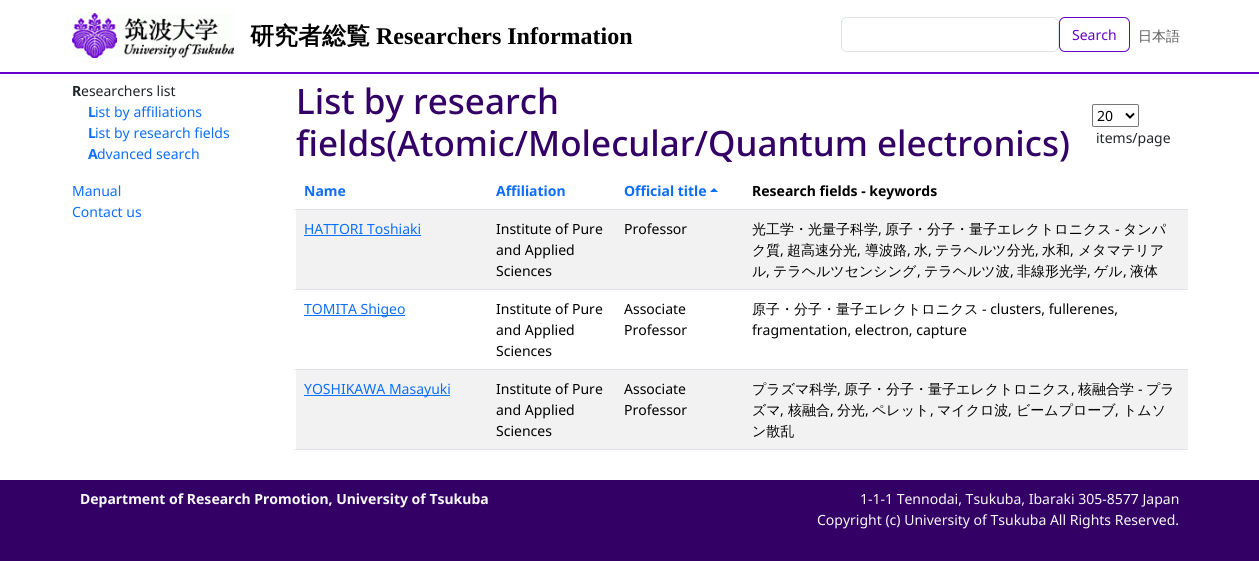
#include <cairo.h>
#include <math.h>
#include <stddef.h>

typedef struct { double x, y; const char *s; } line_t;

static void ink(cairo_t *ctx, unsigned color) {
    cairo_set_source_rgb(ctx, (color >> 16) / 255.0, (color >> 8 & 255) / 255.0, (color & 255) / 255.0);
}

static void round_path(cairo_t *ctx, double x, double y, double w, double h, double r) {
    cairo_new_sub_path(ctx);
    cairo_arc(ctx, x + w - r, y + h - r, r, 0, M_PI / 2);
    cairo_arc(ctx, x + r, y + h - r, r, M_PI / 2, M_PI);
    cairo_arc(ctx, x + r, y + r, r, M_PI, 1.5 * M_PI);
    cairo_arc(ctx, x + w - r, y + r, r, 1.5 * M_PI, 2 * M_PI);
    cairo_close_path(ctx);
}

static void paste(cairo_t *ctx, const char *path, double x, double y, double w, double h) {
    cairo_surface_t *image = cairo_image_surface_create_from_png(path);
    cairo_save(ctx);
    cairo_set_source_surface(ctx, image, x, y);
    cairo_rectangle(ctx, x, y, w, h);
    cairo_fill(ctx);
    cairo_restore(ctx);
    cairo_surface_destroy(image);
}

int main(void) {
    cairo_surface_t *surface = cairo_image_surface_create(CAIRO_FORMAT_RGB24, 1259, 561);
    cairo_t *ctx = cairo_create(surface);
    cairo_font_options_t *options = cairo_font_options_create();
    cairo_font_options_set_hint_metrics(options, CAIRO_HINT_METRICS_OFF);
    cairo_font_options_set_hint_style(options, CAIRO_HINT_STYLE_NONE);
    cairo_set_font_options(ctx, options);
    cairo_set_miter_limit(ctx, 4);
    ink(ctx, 0xFFFFFF);
    cairo_paint(ctx);
    ink(ctx, 0x6600CC);
    cairo_rectangle(ctx, 0, 72, 1259, 2);
    cairo_fill(ctx);
    paste(ctx, "media/1.png", 72, 13, 162, 45);
    cairo_select_font_face(ctx, "WenQuanYi Zen Hei", CAIRO_FONT_SLANT_NORMAL, CAIRO_FONT_WEIGHT_BOLD);
    cairo_set_font_size(ctx, 24);
    ink(ctx, 0x000000);
    cairo_move_to(ctx, 250, 44);
    cairo_show_text(ctx, "研究者総覧");
    cairo_select_font_face(ctx, "Liberation Serif", CAIRO_FONT_SLANT_NORMAL, CAIRO_FONT_WEIGHT_BOLD);
    cairo_move_to(ctx, 376, 44);
    cairo_show_text(ctx, "Researchers Information");
    round_path(ctx, 841.5, 17.5, 217, 34, 5.5);
    ink(ctx, 0xDEE2E6);
    cairo_set_line_width(ctx, 1);
    cairo_stroke(ctx);
    round_path(ctx, 1059.5, 17.5, 70, 34, 5.5);
    ink(ctx, 0x6600CC);
    cairo_stroke(ctx);
    cairo_select_font_face(ctx, "Noto Sans", CAIRO_FONT_SLANT_NORMAL, CAIRO_FONT_WEIGHT_NORMAL);
    cairo_set_font_size(ctx, 14);
    cairo_move_to(ctx, 1072, 40);
    cairo_show_text(ctx, "Search");
    cairo_select_font_face(ctx, "WenQuanYi Zen Hei Medium", CAIRO_FONT_SLANT_NORMAL, CAIRO_FONT_WEIGHT_NORMAL);
    ink(ctx, 0x595959);
    cairo_move_to(ctx, 1138, 41);
    cairo_show_text(ctx, "日本語");
    cairo_select_font_face(ctx, "Noto Sans", CAIRO_FONT_SLANT_NORMAL, CAIRO_FONT_WEIGHT_BOLD);
    ink(ctx, 0x212529);
    cairo_move_to(ctx, 72, 96);
    cairo_show_text(ctx, "R");
    cairo_select_font_face(ctx, "Noto Sans", CAIRO_FONT_SLANT_NORMAL, CAIRO_FONT_WEIGHT_NORMAL);
    cairo_move_to(ctx, 81, 96);
    cairo_show_text(ctx, "esearchers list");
    cairo_select_font_face(ctx, "Noto Sans", CAIRO_FONT_SLANT_NORMAL, CAIRO_FONT_WEIGHT_BOLD);
    ink(ctx, 0x0D6EFD);
    cairo_move_to(ctx, 88, 117);
    cairo_show_text(ctx, "L");
    cairo_select_font_face(ctx, "Noto Sans", CAIRO_FONT_SLANT_NORMAL, CAIRO_FONT_WEIGHT_NORMAL);
    cairo_move_to(ctx, 95, 117);
    cairo_show_text(ctx, "ist by affiliations");
    cairo_select_font_face(ctx, "Noto Sans", CAIRO_FONT_SLANT_NORMAL, CAIRO_FONT_WEIGHT_BOLD);
    cairo_move_to(ctx, 88, 138);
    cairo_show_text(ctx, "L");
    cairo_select_font_face(ctx, "Noto Sans", CAIRO_FONT_SLANT_NORMAL, CAIRO_FONT_WEIGHT_NORMAL);
    cairo_move_to(ctx, 95, 138);
    cairo_show_text(ctx, "ist by research fields");
    cairo_select_font_face(ctx, "Noto Sans", CAIRO_FONT_SLANT_NORMAL, CAIRO_FONT_WEIGHT_BOLD);
    cairo_move_to(ctx, 88, 159);
    cairo_show_text(ctx, "A");
    cairo_select_font_face(ctx, "Noto Sans", CAIRO_FONT_SLANT_NORMAL, CAIRO_FONT_WEIGHT_NORMAL);
    {
        static const line_t items[] = {
            {97, 159, "dvanced search"},
            {72, 196, "Manual"},
            {72, 217, "Contact us"},
        };
        for (size_t i = 0; i < sizeof items / sizeof *items; i++) {
            cairo_move_to(ctx, items[i].x, items[i].y);
            cairo_show_text(ctx, items[i].s);
        }
    }
    cairo_select_font_face(ctx, "Noto Sans Medium", CAIRO_FONT_SLANT_NORMAL, CAIRO_FONT_WEIGHT_NORMAL);
    cairo_set_font_size(ctx, 35);
    ink(ctx, 0x330066);
    cairo_move_to(ctx, 296, 114);
    cairo_show_text(ctx, "List by research");
    cairo_move_to(ctx, 296, 156);
    cairo_show_text(ctx, "fields(Atomic/Molecular/Quantum electronics)");
    round_path(ctx, 1092.5, 104.5, 46, 22, 1.5);
    ink(ctx, 0x767676);
    cairo_stroke(ctx);
    cairo_new_path(ctx);
    cairo_move_to(ctx, 1126, 113.5);
    cairo_line_to(ctx, 1130, 117.5);
    cairo_line_to(ctx, 1134, 113.5);
    ink(ctx, 0x000000);
    cairo_set_line_width(ctx, 2);
    cairo_stroke(ctx);
    cairo_select_font_face(ctx, "Noto Sans", CAIRO_FONT_SLANT_NORMAL, CAIRO_FONT_WEIGHT_NORMAL);
    cairo_set_font_size(ctx, 14);
    cairo_move_to(ctx, 1097, 121);
    cairo_show_text(ctx, "20");
    ink(ctx, 0x212529);
    cairo_move_to(ctx, 1096, 143);
    cairo_show_text(ctx, "items/page");
    cairo_select_font_face(ctx, "Noto Sans", CAIRO_FONT_SLANT_NORMAL, CAIRO_FONT_WEIGHT_BOLD);
    ink(ctx, 0x0D6EFD);
    {
        static const line_t items[] = {
            {304, 196, "Name"},
            {496, 196, "Affiliation"},
            {624, 196, "Official title"},
        };
        for (size_t i = 0; i < sizeof items / sizeof *items; i++) {
            cairo_move_to(ctx, items[i].x, items[i].y);
            cairo_show_text(ctx, items[i].s);
        }
    }
    cairo_new_path(ctx);
    cairo_move_to(ctx, 718, 192);
    cairo_line_to(ctx, 710, 192);
    cairo_line_to(ctx, 714, 188);
    cairo_close_path(ctx);
    cairo_fill(ctx);
    ink(ctx, 0xDEE2E6);
    cairo_rectangle(ctx, 295, 209, 893, 1);
    cairo_fill(ctx);
    ink(ctx, 0x000000);
    cairo_move_to(ctx, 752, 196);
    cairo_show_text(ctx, "Research fields - keywords");
    ink(ctx, 0xF2F2F2);
    cairo_rectangle(ctx, 296, 210, 892, 79);
    cairo_fill(ctx);
    cairo_select_font_face(ctx, "Noto Sans", CAIRO_FONT_SLANT_NORMAL, CAIRO_FONT_WEIGHT_NORMAL);
    ink(ctx, 0x0D6EFD);
    cairo_move_to(ctx, 304, 234);
    cairo_show_text(ctx, "HATTORI Toshiaki");
    cairo_rectangle(ctx, 304, 235, 117, 1);
    cairo_fill(ctx);
    ink(ctx, 0x000000);
    {
        static const line_t items[] = {
            {496, 234, "Institute of Pure"},
            {496, 255, "and Applied"},
            {496, 276, "Sciences"},
            {624, 234, "Professor"},
        };
        for (size_t i = 0; i < sizeof items / sizeof *items; i++) {
            cairo_move_to(ctx, items[i].x, items[i].y);
            cairo_show_text(ctx, items[i].s);
        }
    }
    ink(ctx, 0xDEE2E6);
    cairo_rectangle(ctx, 295, 289, 893, 1);
    cairo_fill(ctx);
    cairo_select_font_face(ctx, "WenQuanYi Zen Hei Medium", CAIRO_FONT_SLANT_NORMAL, CAIRO_FONT_WEIGHT_NORMAL);
    ink(ctx, 0x000000);
    cairo_move_to(ctx, 752, 234);
    cairo_show_text(ctx, "光工学・光量子科学");
    cairo_move_to(ctx, 885, 234);
    cairo_show_text(ctx, "原子・分子・量子エレクトロニクス");
    cairo_select_font_face(ctx, "Noto Sans", CAIRO_FONT_SLANT_NORMAL, CAIRO_FONT_WEIGHT_NORMAL);
    cairo_move_to(ctx, 1115, 234);
    cairo_show_text(ctx, "-");
    cairo_select_font_face(ctx, "WenQuanYi Zen Hei Medium", CAIRO_FONT_SLANT_NORMAL, CAIRO_FONT_WEIGHT_NORMAL);
    cairo_move_to(ctx, 1123, 234);
    cairo_show_text(ctx, "タンパ");
    cairo_select_font_face(ctx, "Noto Sans", CAIRO_FONT_SLANT_NORMAL, CAIRO_FONT_WEIGHT_NORMAL);
    cairo_move_to(ctx, 878, 234);
    cairo_show_text(ctx, ",");
    cairo_select_font_face(ctx, "WenQuanYi Zen Hei Medium", CAIRO_FONT_SLANT_NORMAL, CAIRO_FONT_WEIGHT_NORMAL);
    cairo_move_to(ctx, 752, 255);
    cairo_show_text(ctx, "ク質");
    cairo_select_font_face(ctx, "Noto Sans", CAIRO_FONT_SLANT_NORMAL, CAIRO_FONT_WEIGHT_NORMAL);
    cairo_move_to(ctx, 780, 255);
    cairo_show_text(ctx, ",");
    cairo_select_font_face(ctx, "WenQuanYi Zen Hei Medium", CAIRO_FONT_SLANT_NORMAL, CAIRO_FONT_WEIGHT_NORMAL);
    cairo_move_to(ctx, 787, 255);
    cairo_show_text(ctx, "超高速分光");
    cairo_select_font_face(ctx, "Noto Sans", CAIRO_FONT_SLANT_NORMAL, CAIRO_FONT_WEIGHT_NORMAL);
    cairo_move_to(ctx, 857, 255);
    cairo_show_text(ctx, ",");
    cairo_select_font_face(ctx, "WenQuanYi Zen Hei Medium", CAIRO_FONT_SLANT_NORMAL, CAIRO_FONT_WEIGHT_NORMAL);
    cairo_move_to(ctx, 865, 255);
    cairo_show_text(ctx, "導波路");
    cairo_select_font_face(ctx, "Noto Sans", CAIRO_FONT_SLANT_NORMAL, CAIRO_FONT_WEIGHT_NORMAL);
    cairo_move_to(ctx, 907, 255);
    cairo_show_text(ctx, ",");
    cairo_select_font_face(ctx, "WenQuanYi Zen Hei Medium", CAIRO_FONT_SLANT_NORMAL, CAIRO_FONT_WEIGHT_NORMAL);
    cairo_move_to(ctx, 914, 255);
    cairo_show_text(ctx, "水");
    cairo_select_font_face(ctx, "Noto Sans", CAIRO_FONT_SLANT_NORMAL, CAIRO_FONT_WEIGHT_NORMAL);
    cairo_move_to(ctx, 928, 255);
    cairo_show_text(ctx, ",");
    cairo_select_font_face(ctx, "WenQuanYi Zen Hei Medium", CAIRO_FONT_SLANT_NORMAL, CAIRO_FONT_WEIGHT_NORMAL);
    cairo_move_to(ctx, 935, 255);
    cairo_show_text(ctx, "テラヘルツ分光");
    cairo_select_font_face(ctx, "Noto Sans", CAIRO_FONT_SLANT_NORMAL, CAIRO_FONT_WEIGHT_NORMAL);
    cairo_move_to(ctx, 1035, 255);
    cairo_show_text(ctx, ",");
    cairo_select_font_face(ctx, "WenQuanYi Zen Hei Medium", CAIRO_FONT_SLANT_NORMAL, CAIRO_FONT_WEIGHT_NORMAL);
    cairo_move_to(ctx, 1042, 255);
    cairo_show_text(ctx, "水和");
    cairo_select_font_face(ctx, "Noto Sans", CAIRO_FONT_SLANT_NORMAL, CAIRO_FONT_WEIGHT_NORMAL);
    cairo_move_to(ctx, 1070, 255);
    cairo_show_text(ctx, ",");
    cairo_select_font_face(ctx, "WenQuanYi Zen Hei Medium", CAIRO_FONT_SLANT_NORMAL, CAIRO_FONT_WEIGHT_NORMAL);
    cairo_move_to(ctx, 1078, 255);
    cairo_show_text(ctx, "メタマテリア");
    cairo_move_to(ctx, 752, 276);
    cairo_show_text(ctx, "ル");
    cairo_select_font_face(ctx, "Noto Sans", CAIRO_FONT_SLANT_NORMAL, CAIRO_FONT_WEIGHT_NORMAL);
    cairo_move_to(ctx, 766, 276);
    cairo_show_text(ctx, ",");
    cairo_select_font_face(ctx, "WenQuanYi Zen Hei Medium", CAIRO_FONT_SLANT_NORMAL, CAIRO_FONT_WEIGHT_NORMAL);
    cairo_move_to(ctx, 773, 276);
    cairo_show_text(ctx, "テラヘルツセンシング");
    cairo_select_font_face(ctx, "Noto Sans", CAIRO_FONT_SLANT_NORMAL, CAIRO_FONT_WEIGHT_NORMAL);
    cairo_move_to(ctx, 917, 276);
    cairo_show_text(ctx, ",");
    cairo_select_font_face(ctx, "WenQuanYi Zen Hei Medium", CAIRO_FONT_SLANT_NORMAL, CAIRO_FONT_WEIGHT_NORMAL);
    cairo_move_to(ctx, 924, 276);
    cairo_show_text(ctx, "テラヘルツ波");
    cairo_select_font_face(ctx, "Noto Sans", CAIRO_FONT_SLANT_NORMAL, CAIRO_FONT_WEIGHT_NORMAL);
    cairo_move_to(ctx, 1010, 276);
    cairo_show_text(ctx, ",");
    cairo_select_font_face(ctx, "WenQuanYi Zen Hei Medium", CAIRO_FONT_SLANT_NORMAL, CAIRO_FONT_WEIGHT_NORMAL);
    cairo_move_to(ctx, 1017, 276);
    cairo_show_text(ctx, "非線形光学");
    cairo_select_font_face(ctx, "Noto Sans", CAIRO_FONT_SLANT_NORMAL, CAIRO_FONT_WEIGHT_NORMAL);
    cairo_move_to(ctx, 1087, 276);
    cairo_show_text(ctx, ",");
    cairo_select_font_face(ctx, "WenQuanYi Zen Hei Medium", CAIRO_FONT_SLANT_NORMAL, CAIRO_FONT_WEIGHT_NORMAL);
    cairo_move_to(ctx, 1094, 276);
    cairo_show_text(ctx, "ゲル");
    cairo_select_font_face(ctx, "Noto Sans", CAIRO_FONT_SLANT_NORMAL, CAIRO_FONT_WEIGHT_NORMAL);
    cairo_move_to(ctx, 1123, 276);
    cairo_show_text(ctx, ",");
    cairo_select_font_face(ctx, "WenQuanYi Zen Hei Medium", CAIRO_FONT_SLANT_NORMAL, CAIRO_FONT_WEIGHT_NORMAL);
    cairo_move_to(ctx, 1130, 276);
    cairo_show_text(ctx, "液体");
    ink(ctx, 0x0D6EFD);
    cairo_rectangle(ctx, 304, 315, 101, 1);
    cairo_fill(ctx);
    cairo_select_font_face(ctx, "Noto Sans", CAIRO_FONT_SLANT_NORMAL, CAIRO_FONT_WEIGHT_NORMAL);
    cairo_move_to(ctx, 304, 314);
    cairo_show_text(ctx, "TOMITA Shigeo");
    ink(ctx, 0x000000);
    {
        static const line_t items[] = {
            {496, 314, "Institute of Pure"},
            {496, 335, "and Applied"},
            {496, 356, "Sciences"},
            {624, 314, "Associate"},
            {624, 335, "Professor"},
        };
        for (size_t i = 0; i < sizeof items / sizeof *items; i++) {
            cairo_move_to(ctx, items[i].x, items[i].y);
            cairo_show_text(ctx, items[i].s);
        }
    }
    ink(ctx, 0xDEE2E6);
    cairo_rectangle(ctx, 295, 369, 893, 1);
    cairo_fill(ctx);
    cairo_select_font_face(ctx, "WenQuanYi Zen Hei Medium", CAIRO_FONT_SLANT_NORMAL, CAIRO_FONT_WEIGHT_NORMAL);
    ink(ctx, 0x000000);
    cairo_move_to(ctx, 752, 314);
    cairo_show_text(ctx, "原子・分子・量子エレクトロニクス");
    cairo_select_font_face(ctx, "Noto Sans", CAIRO_FONT_SLANT_NORMAL, CAIRO_FONT_WEIGHT_NORMAL);
    cairo_move_to(ctx, 982, 314);
    cairo_show_text(ctx, "- clusters, fullerenes,");
    cairo_move_to(ctx, 752, 335);
    cairo_show_text(ctx, "fragmentation, electron, capture");
    ink(ctx, 0xF2F2F2);
    cairo_rectangle(ctx, 296, 370, 892, 79);
    cairo_fill(ctx);
    ink(ctx, 0x0D6EFD);
    cairo_rectangle(ctx, 304, 395, 146, 1);
    cairo_fill(ctx);
    cairo_move_to(ctx, 304, 394);
    cairo_show_text(ctx, "YOSHIKAWA Masayuki");
    ink(ctx, 0x000000);
    {
        static const line_t items[] = {
            {496, 394, "Institute of Pure"},
            {496, 415, "and Applied"},
            {496, 436, "Sciences"},
            {624, 394, "Associate"},
            {624, 415, "Professor"},
        };
        for (size_t i = 0; i < sizeof items / sizeof *items; i++) {
            cairo_move_to(ctx, items[i].x, items[i].y);
            cairo_show_text(ctx, items[i].s);
        }
    }
    ink(ctx, 0xDEE2E6);
    cairo_rectangle(ctx, 295, 449, 893, 1);
    cairo_fill(ctx);
    cairo_select_font_face(ctx, "WenQuanYi Zen Hei Medium", CAIRO_FONT_SLANT_NORMAL, CAIRO_FONT_WEIGHT_NORMAL);
    ink(ctx, 0x000000);
    {
        static const line_t items[] = {
            {752, 394, "プラズマ科学"},
            {844, 394, "原子・分子・量子エレクトロニクス"},
            {1078, 394, "核融合学"},
        };
        for (size_t i = 0; i < sizeof items / sizeof *items; i++) {
            cairo_move_to(ctx, items[i].x, items[i].y);
            cairo_show_text(ctx, items[i].s);
        }
    }
    cairo_select_font_face(ctx, "Noto Sans", CAIRO_FONT_SLANT_NORMAL, CAIRO_FONT_WEIGHT_NORMAL);
    cairo_move_to(ctx, 1138, 394);
    cairo_show_text(ctx, "-");
    cairo_select_font_face(ctx, "WenQuanYi Zen Hei Medium", CAIRO_FONT_SLANT_NORMAL, CAIRO_FONT_WEIGHT_NORMAL);
    cairo_move_to(ctx, 1146, 394);
    cairo_show_text(ctx, "プラ");
    cairo_select_font_face(ctx, "Noto Sans", CAIRO_FONT_SLANT_NORMAL, CAIRO_FONT_WEIGHT_NORMAL);
    cairo_move_to(ctx, 837, 394);
    cairo_show_text(ctx, ",");
    cairo_move_to(ctx, 1071, 394);
    cairo_show_text(ctx, ",");
    cairo_select_font_face(ctx, "WenQuanYi Zen Hei Medium", CAIRO_FONT_SLANT_NORMAL, CAIRO_FONT_WEIGHT_NORMAL);
    cairo_move_to(ctx, 752, 415);
    cairo_show_text(ctx, "ズマ");
    cairo_select_font_face(ctx, "Noto Sans", CAIRO_FONT_SLANT_NORMAL, CAIRO_FONT_WEIGHT_NORMAL);
    cairo_move_to(ctx, 780, 415);
    cairo_show_text(ctx, ",");
    cairo_select_font_face(ctx, "WenQuanYi Zen Hei Medium", CAIRO_FONT_SLANT_NORMAL, CAIRO_FONT_WEIGHT_NORMAL);
    cairo_move_to(ctx, 788, 415);
    cairo_show_text(ctx, "核融合");
    cairo_select_font_face(ctx, "Noto Sans", CAIRO_FONT_SLANT_NORMAL, CAIRO_FONT_WEIGHT_NORMAL);
    cairo_move_to(ctx, 830, 415);
    cairo_show_text(ctx, ",");
    cairo_select_font_face(ctx, "WenQuanYi Zen Hei Medium", CAIRO_FONT_SLANT_NORMAL, CAIRO_FONT_WEIGHT_NORMAL);
    cairo_move_to(ctx, 837, 415);
    cairo_show_text(ctx, "分光");
    cairo_select_font_face(ctx, "Noto Sans", CAIRO_FONT_SLANT_NORMAL, CAIRO_FONT_WEIGHT_NORMAL);
    cairo_move_to(ctx, 865, 415);
    cairo_show_text(ctx, ",");
    cairo_select_font_face(ctx, "WenQuanYi Zen Hei Medium", CAIRO_FONT_SLANT_NORMAL, CAIRO_FONT_WEIGHT_NORMAL);
    cairo_move_to(ctx, 872, 415);
    cairo_show_text(ctx, "ペレット");
    cairo_select_font_face(ctx, "Noto Sans", CAIRO_FONT_SLANT_NORMAL, CAIRO_FONT_WEIGHT_NORMAL);
    cairo_move_to(ctx, 930, 415);
    cairo_show_text(ctx, ",");
    cairo_select_font_face(ctx, "WenQuanYi Zen Hei Medium", CAIRO_FONT_SLANT_NORMAL, CAIRO_FONT_WEIGHT_NORMAL);
    cairo_move_to(ctx, 937, 415);
    cairo_show_text(ctx, "マイクロ波");
    cairo_select_font_face(ctx, "Noto Sans", CAIRO_FONT_SLANT_NORMAL, CAIRO_FONT_WEIGHT_NORMAL);
    cairo_move_to(ctx, 1008, 415);
    cairo_show_text(ctx, ",");
    cairo_select_font_face(ctx, "WenQuanYi Zen Hei Medium", CAIRO_FONT_SLANT_NORMAL, CAIRO_FONT_WEIGHT_NORMAL);
    cairo_move_to(ctx, 1016, 415);
    cairo_show_text(ctx, "ビームプローブ");
    cairo_select_font_face(ctx, "Noto Sans", CAIRO_FONT_SLANT_NORMAL, CAIRO_FONT_WEIGHT_NORMAL);
    cairo_move_to(ctx, 1115, 415);
    cairo_show_text(ctx, ",");
    cairo_select_font_face(ctx, "WenQuanYi Zen Hei Medium", CAIRO_FONT_SLANT_NORMAL, CAIRO_FONT_WEIGHT_NORMAL);
    cairo_move_to(ctx, 1123, 415);
    cairo_show_text(ctx, "トムソ");
    cairo_move_to(ctx, 752, 436);
    cairo_show_text(ctx, "ン散乱");
    ink(ctx, 0x330066);
    cairo_rectangle(ctx, 0, 480, 1259, 81);
    cairo_fill(ctx);
    cairo_select_font_face(ctx, "Noto Sans", CAIRO_FONT_SLANT_NORMAL, CAIRO_FONT_WEIGHT_BOLD);
    ink(ctx, 0xF8F9FA);
    cairo_move_to(ctx, 80, 504);
    cairo_show_text(ctx, "Department of Research Promotion, University of Tsukuba");
    cairo_select_font_face(ctx, "Noto Sans", CAIRO_FONT_SLANT_NORMAL, CAIRO_FONT_WEIGHT_NORMAL);
    cairo_move_to(ctx, 860, 504);
    cairo_show_text(ctx, "1-1-1 Tennodai, Tsukuba, Ibaraki 305-8577 Japan");
    cairo_move_to(ctx, 817, 525);
    cairo_show_text(ctx, "Copyright (c) University of Tsukuba All Rights Reserved.");
    cairo_surface_write_to_png(surface, "image.png");
    cairo_font_options_destroy(options);
    cairo_destroy(ctx);
    cairo_surface_destroy(surface);
    return 0;
}
